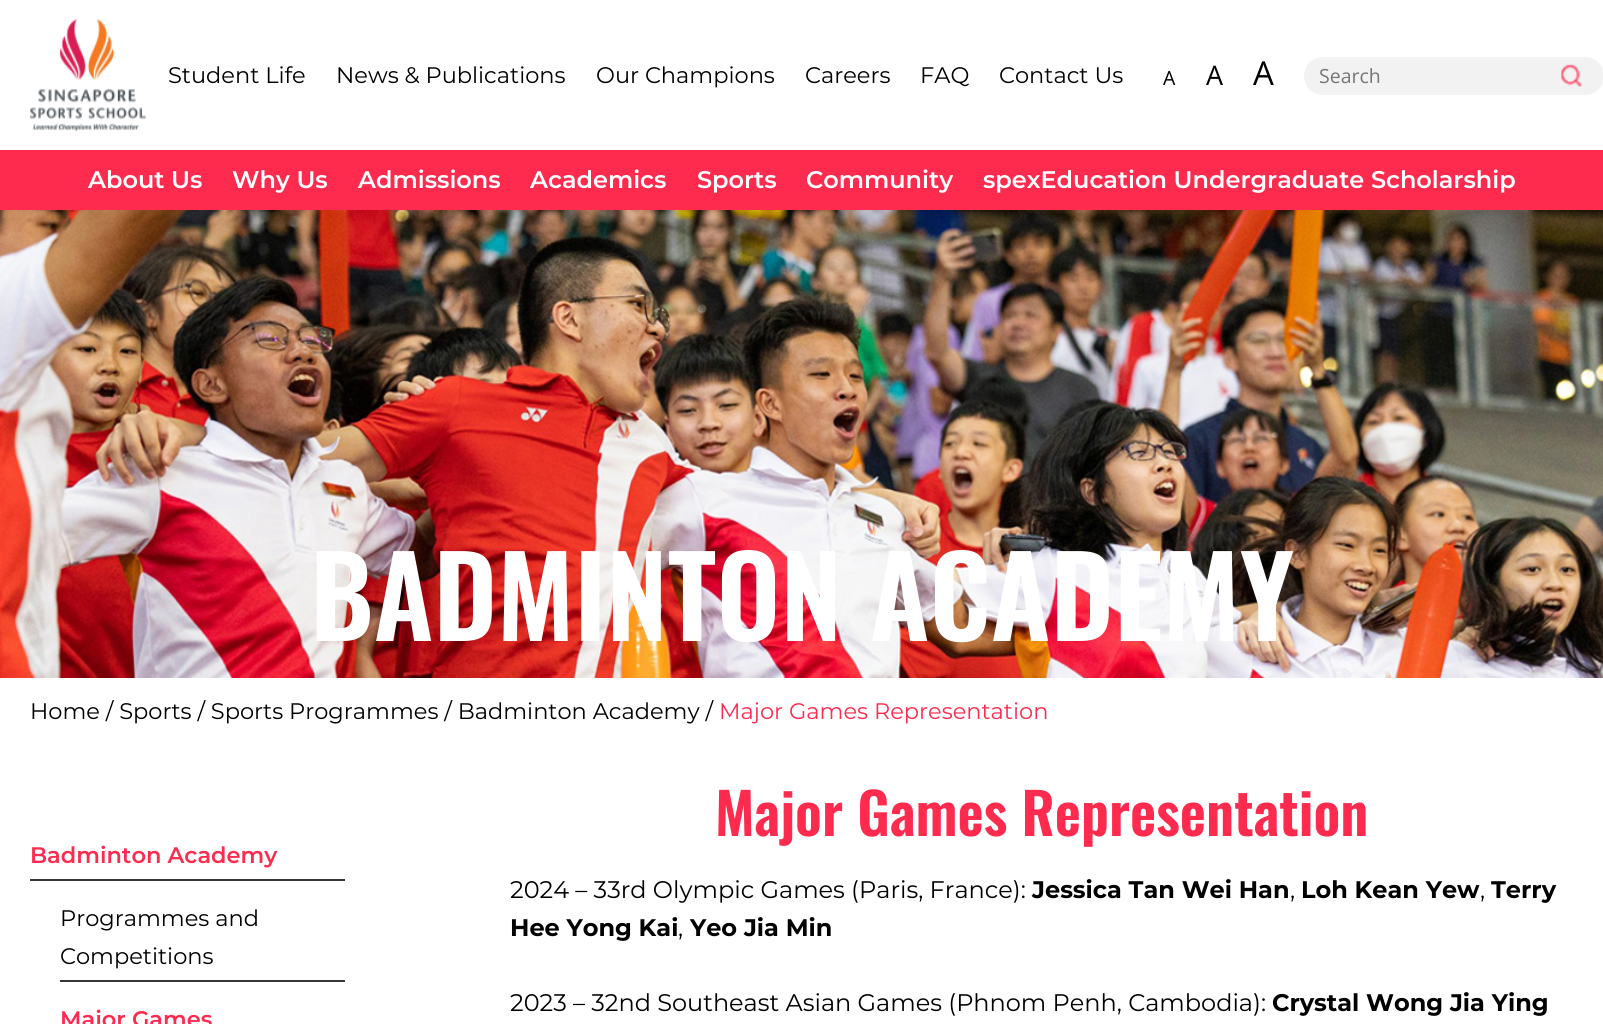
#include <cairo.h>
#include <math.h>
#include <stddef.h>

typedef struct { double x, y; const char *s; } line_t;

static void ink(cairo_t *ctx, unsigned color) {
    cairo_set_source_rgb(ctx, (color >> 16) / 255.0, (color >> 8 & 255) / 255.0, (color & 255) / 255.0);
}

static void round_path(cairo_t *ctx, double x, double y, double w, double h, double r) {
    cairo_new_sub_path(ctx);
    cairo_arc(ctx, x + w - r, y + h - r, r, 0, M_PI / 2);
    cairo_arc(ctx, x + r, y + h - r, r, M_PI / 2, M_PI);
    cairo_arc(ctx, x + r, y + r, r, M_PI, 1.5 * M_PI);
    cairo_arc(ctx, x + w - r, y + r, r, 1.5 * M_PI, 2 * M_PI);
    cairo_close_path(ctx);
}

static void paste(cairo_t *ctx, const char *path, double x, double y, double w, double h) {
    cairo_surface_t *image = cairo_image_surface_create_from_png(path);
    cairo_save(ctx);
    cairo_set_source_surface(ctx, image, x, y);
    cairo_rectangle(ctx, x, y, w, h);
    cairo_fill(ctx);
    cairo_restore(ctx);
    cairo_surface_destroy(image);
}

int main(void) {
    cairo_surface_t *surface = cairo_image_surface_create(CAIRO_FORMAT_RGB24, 1603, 1024);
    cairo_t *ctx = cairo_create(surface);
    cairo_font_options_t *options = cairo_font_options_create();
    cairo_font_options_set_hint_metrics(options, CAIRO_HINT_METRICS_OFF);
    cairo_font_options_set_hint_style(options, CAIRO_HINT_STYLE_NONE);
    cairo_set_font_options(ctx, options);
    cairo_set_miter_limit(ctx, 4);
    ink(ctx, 0xFFFFFF);
    cairo_paint(ctx);
    paste(ctx, "media/1.png", 30, 19, 116, 113);
    cairo_select_font_face(ctx, "Montserrat", CAIRO_FONT_SLANT_NORMAL, CAIRO_FONT_WEIGHT_NORMAL);
    cairo_set_font_size(ctx, 22.5);
    ink(ctx, 0x000000);
    {
        static const line_t items[] = {
            {168, 83, "Student Life"},
            {336, 83, "News & Publications"},
            {596, 83, "Our Champions"},
            {805, 83, "Careers"},
            {920, 83, "FAQ"},
            {999, 83, "Contact Us"},
        };
        for (size_t i = 0; i < sizeof items / sizeof *items; i++) {
            cairo_move_to(ctx, items[i].x, items[i].y);
            cairo_show_text(ctx, items[i].s);
        }
    }
    cairo_select_font_face(ctx, "Open Sans", CAIRO_FONT_SLANT_NORMAL, CAIRO_FONT_WEIGHT_NORMAL);
    cairo_set_font_size(ctx, 19.5);
    cairo_move_to(ctx, 1163, 85);
    cairo_show_text(ctx, "A");
    cairo_set_font_size(ctx, 27);
    cairo_move_to(ctx, 1206, 85);
    cairo_show_text(ctx, "A");
    cairo_set_font_size(ctx, 33);
    cairo_move_to(ctx, 1253, 85);
    cairo_show_text(ctx, "A");
    ink(ctx, 0xF2F2F2);
    round_path(ctx, 1304, 57, 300, 38, 19);
    cairo_fill(ctx);
    paste(ctx, "media/2.png", 1561, 64, 21, 23);
    cairo_set_font_size(ctx, 19.5);
    ink(ctx, 0x757575);
    cairo_move_to(ctx, 1319, 83);
    cairo_show_text(ctx, "Search");
    ink(ctx, 0xFF2B4E);
    cairo_rectangle(ctx, 0, 150, 1603, 60);
    cairo_fill(ctx);
    cairo_select_font_face(ctx, "Montserrat SemiBold", CAIRO_FONT_SLANT_NORMAL, CAIRO_FONT_WEIGHT_NORMAL);
    cairo_set_font_size(ctx, 24);
    ink(ctx, 0xFFFFFF);
    {
        static const line_t items[] = {
            {88, 188, "About Us"},
            {232, 188, "Why Us"},
            {358, 188, "Admissions"},
            {530, 188, "Academics"},
            {697, 188, "Sports"},
            {806, 188, "Community"},
            {983, 188, "spexEducation Undergraduate Scholarship"},
        };
        for (size_t i = 0; i < sizeof items / sizeof *items; i++) {
            cairo_move_to(ctx, items[i].x, items[i].y);
            cairo_show_text(ctx, items[i].s);
        }
    }
    paste(ctx, "media/3.png", 0, 210, 1603, 468);
    cairo_select_font_face(ctx, "Oswald SemiBold", CAIRO_FONT_SLANT_NORMAL, CAIRO_FONT_WEIGHT_NORMAL);
    cairo_set_font_size(ctx, 111);
    cairo_move_to(ctx, 310, 641);
    cairo_show_text(ctx, "BADMINTON ACADEMY");
    cairo_select_font_face(ctx, "Montserrat", CAIRO_FONT_SLANT_NORMAL, CAIRO_FONT_WEIGHT_NORMAL);
    cairo_set_font_size(ctx, 22.5);
    ink(ctx, 0x000000);
    cairo_move_to(ctx, 30, 719);
    cairo_show_text(ctx, "Home / Sports / Sports Programmes / Badminton Academy /");
    ink(ctx, 0xFF2B4E);
    cairo_move_to(ctx, 719, 719);
    cairo_show_text(ctx, "Major Games Representation");
    ink(ctx, 0x363636);
    cairo_rectangle(ctx, 30, 879, 315, 2);
    cairo_fill(ctx);
    cairo_select_font_face(ctx, "Montserrat SemiBold", CAIRO_FONT_SLANT_NORMAL, CAIRO_FONT_WEIGHT_NORMAL);
    ink(ctx, 0xFF2B4E);
    cairo_move_to(ctx, 30, 863);
    cairo_show_text(ctx, "Badminton Academy");
    ink(ctx, 0x363636);
    cairo_rectangle(ctx, 60, 980, 285, 2);
    cairo_fill(ctx);
    cairo_select_font_face(ctx, "Montserrat", CAIRO_FONT_SLANT_NORMAL, CAIRO_FONT_WEIGHT_NORMAL);
    ink(ctx, 0x000000);
    cairo_move_to(ctx, 60, 926);
    cairo_show_text(ctx, "Programmes and");
    cairo_move_to(ctx, 60, 964);
    cairo_show_text(ctx, "Competitions");
    cairo_select_font_face(ctx, "Montserrat SemiBold", CAIRO_FONT_SLANT_NORMAL, CAIRO_FONT_WEIGHT_NORMAL);
    ink(ctx, 0xFF2B4E);
    cairo_move_to(ctx, 60, 1027);
    cairo_show_text(ctx, "Major Games");
    cairo_select_font_face(ctx, "Oswald SemiBold", CAIRO_FONT_SLANT_NORMAL, CAIRO_FONT_WEIGHT_NORMAL);
    cairo_set_font_size(ctx, 57);
    cairo_move_to(ctx, 715, 836);
    cairo_show_text(ctx, "Major Games Representation");
    cairo_select_font_face(ctx, "Montserrat", CAIRO_FONT_SLANT_NORMAL, CAIRO_FONT_WEIGHT_NORMAL);
    cairo_set_font_size(ctx, 24);
    ink(ctx, 0x000000);
    cairo_move_to(ctx, 510, 898);
    cairo_show_text(ctx, "2024 – 33rd Olympic Games (Paris, France):");
    cairo_select_font_face(ctx, "Montserrat", CAIRO_FONT_SLANT_NORMAL, CAIRO_FONT_WEIGHT_BOLD);
    cairo_move_to(ctx, 1032, 898);
    cairo_show_text(ctx, "Jessica Tan Wei Han");
    cairo_select_font_face(ctx, "Montserrat", CAIRO_FONT_SLANT_NORMAL, CAIRO_FONT_WEIGHT_NORMAL);
    cairo_move_to(ctx, 1290, 898);
    cairo_show_text(ctx, ",");
    cairo_select_font_face(ctx, "Montserrat", CAIRO_FONT_SLANT_NORMAL, CAIRO_FONT_WEIGHT_BOLD);
    cairo_move_to(ctx, 1301, 898);
    cairo_show_text(ctx, "Loh Kean Yew");
    cairo_select_font_face(ctx, "Montserrat", CAIRO_FONT_SLANT_NORMAL, CAIRO_FONT_WEIGHT_NORMAL);
    cairo_move_to(ctx, 1480, 898);
    cairo_show_text(ctx, ",");
    cairo_select_font_face(ctx, "Montserrat", CAIRO_FONT_SLANT_NORMAL, CAIRO_FONT_WEIGHT_BOLD);
    cairo_move_to(ctx, 1491, 898);
    cairo_show_text(ctx, "Terry");
    cairo_move_to(ctx, 510, 936);
    cairo_show_text(ctx, "Hee Yong Kai");
    cairo_select_font_face(ctx, "Montserrat", CAIRO_FONT_SLANT_NORMAL, CAIRO_FONT_WEIGHT_NORMAL);
    cairo_move_to(ctx, 678, 936);
    cairo_show_text(ctx, ",");
    cairo_select_font_face(ctx, "Montserrat", CAIRO_FONT_SLANT_NORMAL, CAIRO_FONT_WEIGHT_BOLD);
    cairo_move_to(ctx, 690, 936);
    cairo_show_text(ctx, "Yeo Jia Min");
    cairo_select_font_face(ctx, "Montserrat", CAIRO_FONT_SLANT_NORMAL, CAIRO_FONT_WEIGHT_NORMAL);
    cairo_move_to(ctx, 510, 1011);
    cairo_show_text(ctx, "2023 – 32nd Southeast Asian Games (Phnom Penh, Cambodia):");
    cairo_select_font_face(ctx, "Montserrat", CAIRO_FONT_SLANT_NORMAL, CAIRO_FONT_WEIGHT_BOLD);
    cairo_move_to(ctx, 1272, 1011);
    cairo_show_text(ctx, "Crystal Wong Jia Ying");
    cairo_surface_write_to_png(surface, "image.png");
    cairo_font_options_destroy(options);
    cairo_destroy(ctx);
    cairo_surface_destroy(surface);
    return 0;
}
